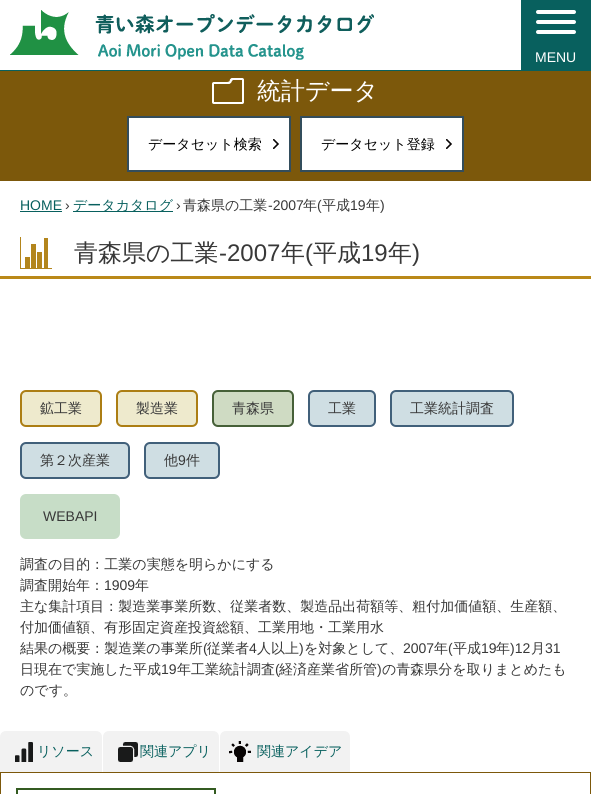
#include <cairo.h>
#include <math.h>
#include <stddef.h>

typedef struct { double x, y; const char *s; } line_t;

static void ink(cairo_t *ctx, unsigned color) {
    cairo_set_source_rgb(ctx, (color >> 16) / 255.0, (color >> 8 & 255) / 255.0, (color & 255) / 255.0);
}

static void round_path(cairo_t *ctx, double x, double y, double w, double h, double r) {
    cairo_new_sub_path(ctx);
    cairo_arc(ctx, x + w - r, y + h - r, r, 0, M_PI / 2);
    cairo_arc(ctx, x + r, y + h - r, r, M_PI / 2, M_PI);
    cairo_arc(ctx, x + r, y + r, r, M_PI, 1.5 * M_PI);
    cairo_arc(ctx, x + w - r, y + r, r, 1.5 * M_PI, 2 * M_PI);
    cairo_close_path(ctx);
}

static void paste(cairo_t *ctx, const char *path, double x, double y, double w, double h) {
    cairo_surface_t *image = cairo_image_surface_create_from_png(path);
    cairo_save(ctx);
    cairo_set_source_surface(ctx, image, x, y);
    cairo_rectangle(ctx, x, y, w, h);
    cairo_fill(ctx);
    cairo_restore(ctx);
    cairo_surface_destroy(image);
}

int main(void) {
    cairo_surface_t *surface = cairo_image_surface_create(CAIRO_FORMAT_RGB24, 591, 794);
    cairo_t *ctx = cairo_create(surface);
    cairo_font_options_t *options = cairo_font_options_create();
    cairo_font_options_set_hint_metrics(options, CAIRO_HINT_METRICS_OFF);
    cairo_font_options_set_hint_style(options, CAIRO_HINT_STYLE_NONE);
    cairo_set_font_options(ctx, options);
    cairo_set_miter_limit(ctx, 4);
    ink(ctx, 0xFFFFFF);
    cairo_paint(ctx);
    ink(ctx, 0x08605E);
    cairo_rectangle(ctx, 0, 70, 591, 1);
    cairo_fill(ctx);
    paste(ctx, "media/1.png", 10, 10, 364, 50);
    cairo_rectangle(ctx, 521, 0, 70, 70);
    cairo_fill(ctx);
    ink(ctx, 0xFFFFFF);
    round_path(ctx, 536, 10, 40, 4, 2);
    cairo_fill(ctx);
    round_path(ctx, 536, 20, 40, 4, 2);
    cairo_fill(ctx);
    round_path(ctx, 536, 30, 40, 4, 2);
    cairo_fill(ctx);
    cairo_select_font_face(ctx, "Liberation Sans", CAIRO_FONT_SLANT_NORMAL, CAIRO_FONT_WEIGHT_NORMAL);
    cairo_set_font_size(ctx, 14);
    cairo_move_to(ctx, 535, 62);
    cairo_show_text(ctx, "MENU");
    ink(ctx, 0x7C580B);
    cairo_rectangle(ctx, 0, 71, 591, 110);
    cairo_fill(ctx);
    paste(ctx, "media/2.png", 212, 78, 32, 26);
    cairo_select_font_face(ctx, "WenQuanYi Zen Hei Medium", CAIRO_FONT_SLANT_NORMAL, CAIRO_FONT_WEIGHT_NORMAL);
    cairo_set_font_size(ctx, 24);
    ink(ctx, 0xFFFFFF);
    cairo_move_to(ctx, 257, 99);
    cairo_show_text(ctx, "統計データ");
    cairo_rectangle(ctx, 128, 117, 162, 54);
    ink(ctx, 0x334D5C);
    cairo_stroke(ctx);
    ink(ctx, 0xFFFFFF);
    cairo_rectangle(ctx, 129, 118, 160, 52);
    cairo_fill(ctx);
    paste(ctx, "media/3.png", 273, 139, 6, 10);
    cairo_set_font_size(ctx, 14);
    ink(ctx, 0x000000);
    cairo_move_to(ctx, 148, 149);
    cairo_show_text(ctx, "データセット検索");
    cairo_rectangle(ctx, 301, 117, 162, 54);
    ink(ctx, 0x334D5C);
    cairo_stroke(ctx);
    ink(ctx, 0xFFFFFF);
    cairo_rectangle(ctx, 302, 118, 160, 52);
    cairo_fill(ctx);
    paste(ctx, "media/3.png", 446, 139, 6, 10);
    ink(ctx, 0x000000);
    cairo_move_to(ctx, 321, 149);
    cairo_show_text(ctx, "データセット登録");
    cairo_select_font_face(ctx, "Liberation Sans", CAIRO_FONT_SLANT_NORMAL, CAIRO_FONT_WEIGHT_NORMAL);
    ink(ctx, 0x08605E);
    cairo_move_to(ctx, 20, 210);
    cairo_show_text(ctx, "HOME");
    cairo_rectangle(ctx, 20, 211, 42, 1);
    cairo_fill(ctx);
    ink(ctx, 0x383838);
    cairo_move_to(ctx, 65, 210);
    cairo_show_text(ctx, "›");
    ink(ctx, 0x08605E);
    cairo_rectangle(ctx, 73, 211, 100, 1);
    cairo_fill(ctx);
    cairo_select_font_face(ctx, "WenQuanYi Zen Hei Medium", CAIRO_FONT_SLANT_NORMAL, CAIRO_FONT_WEIGHT_NORMAL);
    cairo_move_to(ctx, 73, 210);
    cairo_show_text(ctx, "データカタログ");
    cairo_select_font_face(ctx, "Liberation Sans", CAIRO_FONT_SLANT_NORMAL, CAIRO_FONT_WEIGHT_NORMAL);
    ink(ctx, 0x383838);
    cairo_move_to(ctx, 176, 210);
    cairo_show_text(ctx, "›");
    cairo_select_font_face(ctx, "WenQuanYi Zen Hei Medium", CAIRO_FONT_SLANT_NORMAL, CAIRO_FONT_WEIGHT_NORMAL);
    cairo_move_to(ctx, 183, 210);
    cairo_show_text(ctx, "青森県の工業");
    cairo_select_font_face(ctx, "Liberation Sans", CAIRO_FONT_SLANT_NORMAL, CAIRO_FONT_WEIGHT_NORMAL);
    cairo_move_to(ctx, 268, 210);
    cairo_show_text(ctx, "-2007");
    cairo_select_font_face(ctx, "WenQuanYi Zen Hei Medium", CAIRO_FONT_SLANT_NORMAL, CAIRO_FONT_WEIGHT_NORMAL);
    cairo_move_to(ctx, 303, 210);
    cairo_show_text(ctx, "年");
    cairo_select_font_face(ctx, "Liberation Sans", CAIRO_FONT_SLANT_NORMAL, CAIRO_FONT_WEIGHT_NORMAL);
    cairo_move_to(ctx, 317, 210);
    cairo_show_text(ctx, "(");
    cairo_select_font_face(ctx, "WenQuanYi Zen Hei Medium", CAIRO_FONT_SLANT_NORMAL, CAIRO_FONT_WEIGHT_NORMAL);
    cairo_move_to(ctx, 322, 210);
    cairo_show_text(ctx, "平成");
    cairo_select_font_face(ctx, "Liberation Sans", CAIRO_FONT_SLANT_NORMAL, CAIRO_FONT_WEIGHT_NORMAL);
    cairo_move_to(ctx, 350, 210);
    cairo_show_text(ctx, "19");
    cairo_select_font_face(ctx, "WenQuanYi Zen Hei Medium", CAIRO_FONT_SLANT_NORMAL, CAIRO_FONT_WEIGHT_NORMAL);
    cairo_move_to(ctx, 366, 210);
    cairo_show_text(ctx, "年");
    cairo_select_font_face(ctx, "Liberation Sans", CAIRO_FONT_SLANT_NORMAL, CAIRO_FONT_WEIGHT_NORMAL);
    cairo_move_to(ctx, 380, 210);
    cairo_show_text(ctx, ")");
    paste(ctx, "media/4.png", 20, 237, 32, 32);
    ink(ctx, 0xBA8918);
    cairo_rectangle(ctx, 0, 276, 591, 3);
    cairo_fill(ctx);
    cairo_select_font_face(ctx, "WenQuanYi Zen Hei Medium", CAIRO_FONT_SLANT_NORMAL, CAIRO_FONT_WEIGHT_NORMAL);
    cairo_set_font_size(ctx, 24);
    ink(ctx, 0x383838);
    cairo_move_to(ctx, 74, 261);
    cairo_show_text(ctx, "青森県の工業");
    cairo_select_font_face(ctx, "Liberation Sans", CAIRO_FONT_SLANT_NORMAL, CAIRO_FONT_WEIGHT_NORMAL);
    cairo_move_to(ctx, 219, 261);
    cairo_show_text(ctx, "-2007");
    cairo_select_font_face(ctx, "WenQuanYi Zen Hei Medium", CAIRO_FONT_SLANT_NORMAL, CAIRO_FONT_WEIGHT_NORMAL);
    cairo_move_to(ctx, 281, 261);
    cairo_show_text(ctx, "年");
    cairo_select_font_face(ctx, "Liberation Sans", CAIRO_FONT_SLANT_NORMAL, CAIRO_FONT_WEIGHT_NORMAL);
    cairo_move_to(ctx, 305, 261);
    cairo_show_text(ctx, "(");
    cairo_select_font_face(ctx, "WenQuanYi Zen Hei Medium", CAIRO_FONT_SLANT_NORMAL, CAIRO_FONT_WEIGHT_NORMAL);
    cairo_move_to(ctx, 313, 261);
    cairo_show_text(ctx, "平成");
    cairo_select_font_face(ctx, "Liberation Sans", CAIRO_FONT_SLANT_NORMAL, CAIRO_FONT_WEIGHT_NORMAL);
    cairo_move_to(ctx, 361, 261);
    cairo_show_text(ctx, "19");
    cairo_select_font_face(ctx, "WenQuanYi Zen Hei Medium", CAIRO_FONT_SLANT_NORMAL, CAIRO_FONT_WEIGHT_NORMAL);
    cairo_move_to(ctx, 388, 261);
    cairo_show_text(ctx, "年");
    cairo_select_font_face(ctx, "Liberation Sans", CAIRO_FONT_SLANT_NORMAL, CAIRO_FONT_WEIGHT_NORMAL);
    cairo_move_to(ctx, 412, 261);
    cairo_show_text(ctx, ")");
    ink(ctx, 0xEEEACD);
    round_path(ctx, 21, 391, 80, 35, 5);
    cairo_fill_preserve(ctx);
    ink(ctx, 0xAC7E14);
    cairo_stroke(ctx);
    cairo_select_font_face(ctx, "WenQuanYi Zen Hei Medium", CAIRO_FONT_SLANT_NORMAL, CAIRO_FONT_WEIGHT_NORMAL);
    cairo_set_font_size(ctx, 14);
    ink(ctx, 0x383838);
    cairo_move_to(ctx, 40, 413);
    cairo_show_text(ctx, "鉱工業");
    ink(ctx, 0xEEEACD);
    round_path(ctx, 117, 391, 80, 35, 5);
    cairo_fill_preserve(ctx);
    ink(ctx, 0xAC7E14);
    cairo_stroke(ctx);
    ink(ctx, 0x383838);
    cairo_move_to(ctx, 136, 413);
    cairo_show_text(ctx, "製造業");
    ink(ctx, 0xCFDBC3);
    round_path(ctx, 213, 391, 80, 35, 5);
    cairo_fill_preserve(ctx);
    ink(ctx, 0x466038);
    cairo_stroke(ctx);
    ink(ctx, 0x383838);
    cairo_move_to(ctx, 232, 413);
    cairo_show_text(ctx, "青森県");
    ink(ctx, 0xCFDEE3);
    round_path(ctx, 309, 391, 66, 35, 5);
    cairo_fill_preserve(ctx);
    ink(ctx, 0x41607A);
    cairo_stroke(ctx);
    ink(ctx, 0x383838);
    cairo_move_to(ctx, 328, 413);
    cairo_show_text(ctx, "工業");
    ink(ctx, 0xCFDEE3);
    round_path(ctx, 391, 391, 122, 35, 5);
    cairo_fill_preserve(ctx);
    ink(ctx, 0x41607A);
    cairo_stroke(ctx);
    ink(ctx, 0x383838);
    cairo_move_to(ctx, 410, 413);
    cairo_show_text(ctx, "工業統計調査");
    ink(ctx, 0xCFDEE3);
    round_path(ctx, 21, 443, 108, 35, 5);
    cairo_fill_preserve(ctx);
    ink(ctx, 0x41607A);
    cairo_stroke(ctx);
    ink(ctx, 0x383838);
    cairo_move_to(ctx, 40, 465);
    cairo_show_text(ctx, "第２次産業");
    ink(ctx, 0xCFDEE3);
    round_path(ctx, 145, 443, 74, 35, 5);
    cairo_fill_preserve(ctx);
    ink(ctx, 0x41607A);
    cairo_stroke(ctx);
    ink(ctx, 0x383838);
    cairo_move_to(ctx, 164, 465);
    cairo_show_text(ctx, "他");
    cairo_select_font_face(ctx, "Liberation Sans", CAIRO_FONT_SLANT_NORMAL, CAIRO_FONT_WEIGHT_NORMAL);
    cairo_move_to(ctx, 178, 465);
    cairo_show_text(ctx, "9");
    cairo_select_font_face(ctx, "WenQuanYi Zen Hei Medium", CAIRO_FONT_SLANT_NORMAL, CAIRO_FONT_WEIGHT_NORMAL);
    cairo_move_to(ctx, 186, 465);
    cairo_show_text(ctx, "件");
    ink(ctx, 0xC7DDC7);
    round_path(ctx, 20, 494, 100, 45, 6);
    cairo_fill(ctx);
    cairo_select_font_face(ctx, "Liberation Sans", CAIRO_FONT_SLANT_NORMAL, CAIRO_FONT_WEIGHT_NORMAL);
    ink(ctx, 0x383838);
    cairo_move_to(ctx, 43, 521);
    cairo_show_text(ctx, "WEBAPI");
    cairo_select_font_face(ctx, "WenQuanYi Zen Hei Medium", CAIRO_FONT_SLANT_NORMAL, CAIRO_FONT_WEIGHT_NORMAL);
    cairo_move_to(ctx, 20, 569);
    cairo_show_text(ctx, "調査の目的：工業の実態を明らかにする");
    cairo_move_to(ctx, 20, 590);
    cairo_show_text(ctx, "調査開始年：");
    cairo_select_font_face(ctx, "Liberation Sans", CAIRO_FONT_SLANT_NORMAL, CAIRO_FONT_WEIGHT_NORMAL);
    cairo_move_to(ctx, 104, 590);
    cairo_show_text(ctx, "1909");
    cairo_select_font_face(ctx, "WenQuanYi Zen Hei Medium", CAIRO_FONT_SLANT_NORMAL, CAIRO_FONT_WEIGHT_NORMAL);
    {
        static const line_t items[] = {
            {135, 590, "年"},
            {20, 611, "主な集計項目：製造業事業所数、従業者数、製造品出荷額等、粗付加価値額、生産額、"},
            {20, 632, "付加価値額、有形固定資産投資総額、工業用地・工業用水"},
            {20, 653, "結果の概要：製造業の事業所"},
        };
        for (size_t i = 0; i < sizeof items / sizeof *items; i++) {
            cairo_move_to(ctx, items[i].x, items[i].y);
            cairo_show_text(ctx, items[i].s);
        }
    }
    cairo_select_font_face(ctx, "Liberation Sans", CAIRO_FONT_SLANT_NORMAL, CAIRO_FONT_WEIGHT_NORMAL);
    cairo_move_to(ctx, 203, 653);
    cairo_show_text(ctx, "(");
    cairo_select_font_face(ctx, "WenQuanYi Zen Hei Medium", CAIRO_FONT_SLANT_NORMAL, CAIRO_FONT_WEIGHT_NORMAL);
    cairo_move_to(ctx, 207, 653);
    cairo_show_text(ctx, "従業者");
    cairo_select_font_face(ctx, "Liberation Sans", CAIRO_FONT_SLANT_NORMAL, CAIRO_FONT_WEIGHT_NORMAL);
    cairo_move_to(ctx, 249, 653);
    cairo_show_text(ctx, "4");
    cairo_select_font_face(ctx, "WenQuanYi Zen Hei Medium", CAIRO_FONT_SLANT_NORMAL, CAIRO_FONT_WEIGHT_NORMAL);
    cairo_move_to(ctx, 257, 653);
    cairo_show_text(ctx, "人以上");
    cairo_select_font_face(ctx, "Liberation Sans", CAIRO_FONT_SLANT_NORMAL, CAIRO_FONT_WEIGHT_NORMAL);
    cairo_move_to(ctx, 299, 653);
    cairo_show_text(ctx, ")");
    cairo_select_font_face(ctx, "WenQuanYi Zen Hei Medium", CAIRO_FONT_SLANT_NORMAL, CAIRO_FONT_WEIGHT_NORMAL);
    cairo_move_to(ctx, 304, 653);
    cairo_show_text(ctx, "を対象として、");
    cairo_select_font_face(ctx, "Liberation Sans", CAIRO_FONT_SLANT_NORMAL, CAIRO_FONT_WEIGHT_NORMAL);
    cairo_move_to(ctx, 403, 653);
    cairo_show_text(ctx, "2007");
    cairo_select_font_face(ctx, "WenQuanYi Zen Hei Medium", CAIRO_FONT_SLANT_NORMAL, CAIRO_FONT_WEIGHT_NORMAL);
    cairo_move_to(ctx, 434, 653);
    cairo_show_text(ctx, "年");
    cairo_select_font_face(ctx, "Liberation Sans", CAIRO_FONT_SLANT_NORMAL, CAIRO_FONT_WEIGHT_NORMAL);
    cairo_move_to(ctx, 448, 653);
    cairo_show_text(ctx, "(");
    cairo_select_font_face(ctx, "WenQuanYi Zen Hei Medium", CAIRO_FONT_SLANT_NORMAL, CAIRO_FONT_WEIGHT_NORMAL);
    cairo_move_to(ctx, 453, 653);
    cairo_show_text(ctx, "平成");
    cairo_select_font_face(ctx, "Liberation Sans", CAIRO_FONT_SLANT_NORMAL, CAIRO_FONT_WEIGHT_NORMAL);
    cairo_move_to(ctx, 481, 653);
    cairo_show_text(ctx, "19");
    cairo_select_font_face(ctx, "WenQuanYi Zen Hei Medium", CAIRO_FONT_SLANT_NORMAL, CAIRO_FONT_WEIGHT_NORMAL);
    cairo_move_to(ctx, 496, 653);
    cairo_show_text(ctx, "年");
    cairo_select_font_face(ctx, "Liberation Sans", CAIRO_FONT_SLANT_NORMAL, CAIRO_FONT_WEIGHT_NORMAL);
    cairo_move_to(ctx, 510, 653);
    cairo_show_text(ctx, ")12");
    cairo_select_font_face(ctx, "WenQuanYi Zen Hei Medium", CAIRO_FONT_SLANT_NORMAL, CAIRO_FONT_WEIGHT_NORMAL);
    cairo_move_to(ctx, 531, 653);
    cairo_show_text(ctx, "月");
    cairo_select_font_face(ctx, "Liberation Sans", CAIRO_FONT_SLANT_NORMAL, CAIRO_FONT_WEIGHT_NORMAL);
    cairo_move_to(ctx, 545, 653);
    cairo_show_text(ctx, "31");
    cairo_select_font_face(ctx, "WenQuanYi Zen Hei Medium", CAIRO_FONT_SLANT_NORMAL, CAIRO_FONT_WEIGHT_NORMAL);
    cairo_move_to(ctx, 20, 674);
    cairo_show_text(ctx, "日現在で実施した平成");
    cairo_select_font_face(ctx, "Liberation Sans", CAIRO_FONT_SLANT_NORMAL, CAIRO_FONT_WEIGHT_NORMAL);
    cairo_move_to(ctx, 161, 674);
    cairo_show_text(ctx, "19");
    cairo_select_font_face(ctx, "WenQuanYi Zen Hei Medium", CAIRO_FONT_SLANT_NORMAL, CAIRO_FONT_WEIGHT_NORMAL);
    cairo_move_to(ctx, 177, 674);
    cairo_show_text(ctx, "年工業統計調査");
    cairo_select_font_face(ctx, "Liberation Sans", CAIRO_FONT_SLANT_NORMAL, CAIRO_FONT_WEIGHT_NORMAL);
    cairo_move_to(ctx, 275, 674);
    cairo_show_text(ctx, "(");
    cairo_select_font_face(ctx, "WenQuanYi Zen Hei Medium", CAIRO_FONT_SLANT_NORMAL, CAIRO_FONT_WEIGHT_NORMAL);
    cairo_move_to(ctx, 279, 674);
    cairo_show_text(ctx, "経済産業省所管");
    cairo_select_font_face(ctx, "Liberation Sans", CAIRO_FONT_SLANT_NORMAL, CAIRO_FONT_WEIGHT_NORMAL);
    cairo_move_to(ctx, 377, 674);
    cairo_show_text(ctx, ")");
    cairo_select_font_face(ctx, "WenQuanYi Zen Hei Medium", CAIRO_FONT_SLANT_NORMAL, CAIRO_FONT_WEIGHT_NORMAL);
    cairo_move_to(ctx, 382, 674);
    cairo_show_text(ctx, "の青森県分を取りまとめたも");
    cairo_move_to(ctx, 20, 695);
    cairo_show_text(ctx, "のです。");
    ink(ctx, 0xF2F2F2);
    cairo_new_path(ctx);
    cairo_move_to(ctx, 6, 731);
    cairo_line_to(ctx, 96, 731);
    cairo_curve_to(ctx, 99.5, 731, 102, 733.5, 102, 737);
    cairo_line_to(ctx, 102, 772);
    cairo_line_to(ctx, 0, 772);
    cairo_line_to(ctx, 0, 737);
    cairo_curve_to(ctx, 0, 733.5, 2.5, 731, 6, 731);
    cairo_close_path(ctx);
    cairo_fill(ctx);
    paste(ctx, "media/5.png", 15, 742, 18, 20);
    ink(ctx, 0x08605E);
    cairo_move_to(ctx, 37, 756);
    cairo_show_text(ctx, "リソース");
    ink(ctx, 0xF2F2F2);
    cairo_new_path(ctx);
    cairo_move_to(ctx, 109, 731);
    cairo_line_to(ctx, 213, 731);
    cairo_curve_to(ctx, 216.5, 731, 219, 733.5, 219, 737);
    cairo_line_to(ctx, 219, 772);
    cairo_line_to(ctx, 103, 772);
    cairo_line_to(ctx, 103, 737);
    cairo_curve_to(ctx, 103, 733.5, 105.5, 731, 109, 731);
    cairo_close_path(ctx);
    cairo_fill(ctx);
    paste(ctx, "media/6.png", 118, 742, 20, 20);
    ink(ctx, 0x08605E);
    cairo_move_to(ctx, 140, 756);
    cairo_show_text(ctx, "関連アプリ");
    ink(ctx, 0xF2F2F2);
    cairo_new_path(ctx);
    cairo_move_to(ctx, 226, 731);
    cairo_line_to(ctx, 344, 731);
    cairo_curve_to(ctx, 347.5, 731, 350, 733.5, 350, 737);
    cairo_line_to(ctx, 350, 772);
    cairo_line_to(ctx, 220, 772);
    cairo_line_to(ctx, 220, 737);
    cairo_curve_to(ctx, 220, 733.5, 222.5, 731, 226, 731);
    cairo_close_path(ctx);
    cairo_fill(ctx);
    paste(ctx, "media/7.png", 229, 741, 22, 21);
    ink(ctx, 0x08605E);
    cairo_move_to(ctx, 257, 756);
    cairo_show_text(ctx, "関連アイデア");
    cairo_rectangle(ctx, 0.5, 772.5, 590, 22);
    ink(ctx, 0x7C580B);
    cairo_set_line_width(ctx, 1);
    cairo_stroke(ctx);
    cairo_rectangle(ctx, 17, 789, 198, 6);
    ink(ctx, 0x345B21);
    cairo_set_line_width(ctx, 2);
    cairo_stroke(ctx);
    cairo_surface_write_to_png(surface, "image.png");
    cairo_font_options_destroy(options);
    cairo_destroy(ctx);
    cairo_surface_destroy(surface);
    return 0;
}
